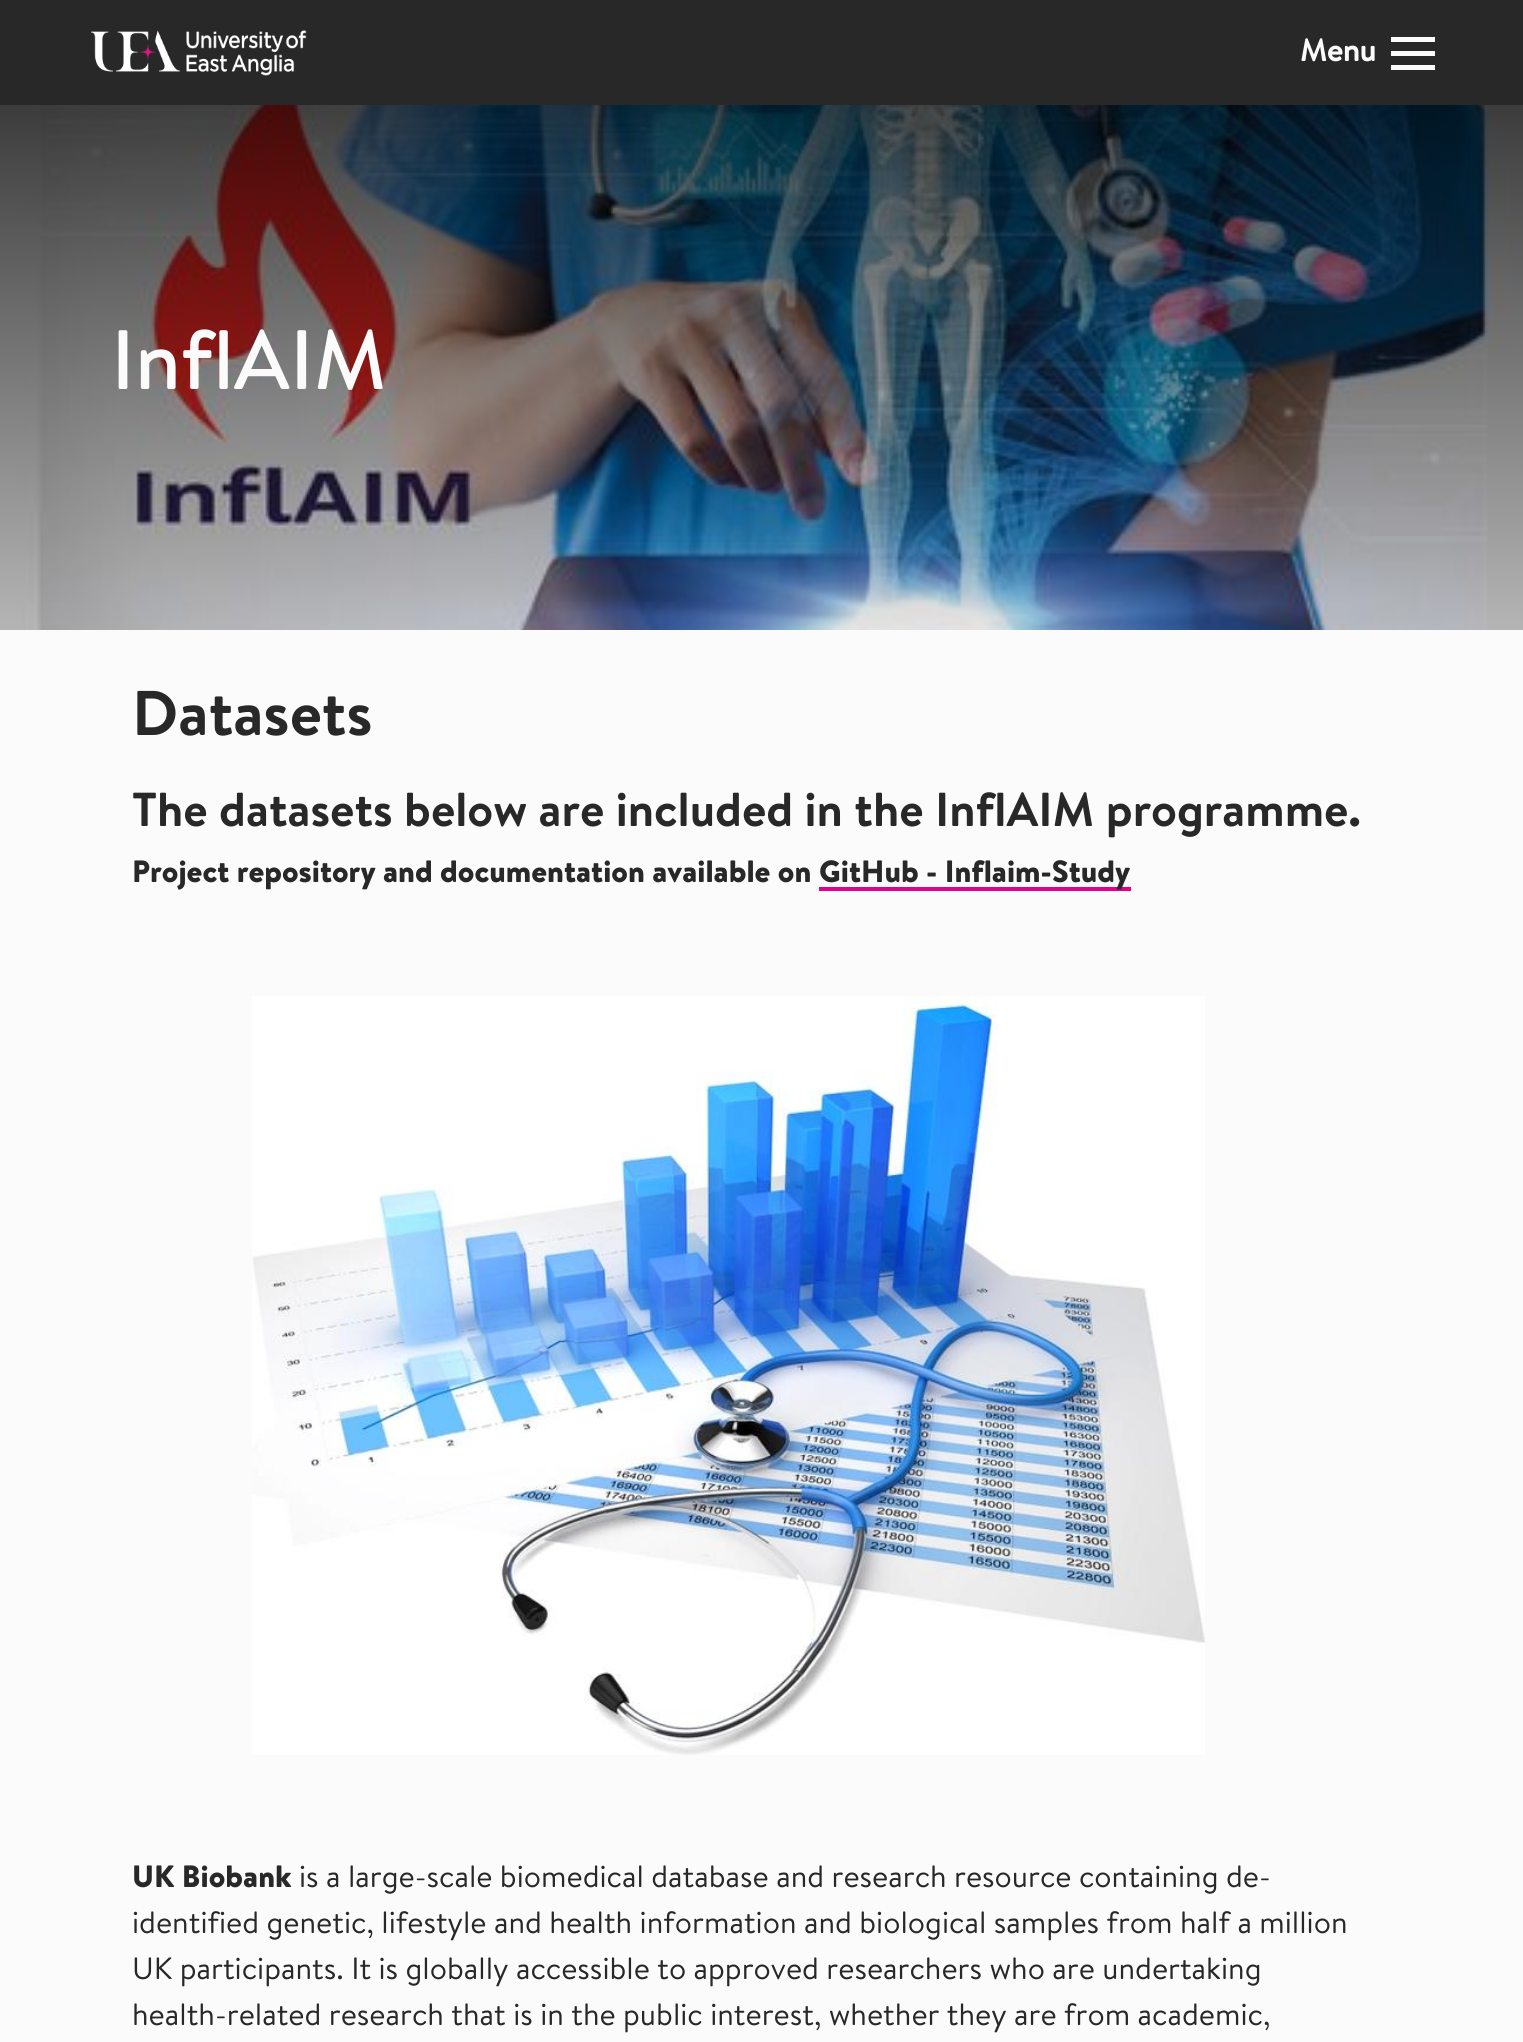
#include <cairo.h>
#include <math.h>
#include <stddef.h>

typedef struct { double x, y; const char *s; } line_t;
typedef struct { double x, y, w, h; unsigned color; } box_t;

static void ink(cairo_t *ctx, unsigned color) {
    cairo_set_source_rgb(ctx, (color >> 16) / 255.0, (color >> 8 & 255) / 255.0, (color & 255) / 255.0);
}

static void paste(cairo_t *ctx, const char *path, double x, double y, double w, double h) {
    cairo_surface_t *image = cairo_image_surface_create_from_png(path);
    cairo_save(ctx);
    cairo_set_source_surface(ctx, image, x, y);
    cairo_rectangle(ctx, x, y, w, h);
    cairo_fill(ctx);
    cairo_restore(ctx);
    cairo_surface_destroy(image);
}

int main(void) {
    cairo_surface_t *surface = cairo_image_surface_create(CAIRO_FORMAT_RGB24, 1523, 2042);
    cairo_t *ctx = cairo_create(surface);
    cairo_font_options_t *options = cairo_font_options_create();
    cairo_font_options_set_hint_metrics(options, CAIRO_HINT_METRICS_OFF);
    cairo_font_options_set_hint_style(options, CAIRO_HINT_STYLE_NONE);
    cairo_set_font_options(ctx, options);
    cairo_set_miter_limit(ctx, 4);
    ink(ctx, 0xFBFBFB);
    cairo_paint(ctx);
    ink(ctx, 0x282828);
    cairo_rectangle(ctx, 0, 0, 1523, 105);
    cairo_fill(ctx);
    paste(ctx, "media/1.png", 91, 30, 216, 46);
    cairo_select_font_face(ctx, "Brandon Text", CAIRO_FONT_SLANT_NORMAL, CAIRO_FONT_WEIGHT_BOLD);
    cairo_set_font_size(ctx, 30.8);
    ink(ctx, 0xFBFBFB);
    cairo_move_to(ctx, 1300, 61);
    cairo_show_text(ctx, "Menu");
    {
        static const box_t items[] = {
            {1391, 37, 44, 5, 0xFBFBFB},
            {1391, 51, 44, 5, 0xFBFBFB},
            {1391, 65, 44, 5, 0xFBFBFB},
        };
        for (size_t i = 0; i < sizeof items / sizeof *items; i++) {
            ink(ctx, items[i].color);
            cairo_rectangle(ctx, items[i].x, items[i].y, items[i].w, items[i].h);
            cairo_fill(ctx);
        }
    }
    paste(ctx, "media/2.png", 0, 105, 1523, 525);
    cairo_select_font_face(ctx, "Brandon Text", CAIRO_FONT_SLANT_NORMAL, CAIRO_FONT_WEIGHT_NORMAL);
    cairo_set_font_size(ctx, 84);
    cairo_move_to(ctx, 111, 389);
    cairo_show_text(ctx, "InflAIM");
    cairo_select_font_face(ctx, "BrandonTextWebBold", CAIRO_FONT_SLANT_NORMAL, CAIRO_FONT_WEIGHT_NORMAL);
    cairo_set_font_size(ctx, 63);
    ink(ctx, 0x282828);
    cairo_move_to(ctx, 132, 735);
    cairo_show_text(ctx, "Datasets");
    cairo_set_font_size(ctx, 47.6);
    cairo_move_to(ctx, 132, 826);
    cairo_show_text(ctx, "The datasets below are included in the InflAIM programme.");
    cairo_select_font_face(ctx, "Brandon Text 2", CAIRO_FONT_SLANT_NORMAL, CAIRO_FONT_WEIGHT_NORMAL);
    cairo_set_font_size(ctx, 30.8);
    cairo_move_to(ctx, 132, 882);
    cairo_show_text(ctx, "Project repository and documentation available on");
    ink(ctx, 0xE40087);
    cairo_rectangle(ctx, 819, 887, 312, 4);
    cairo_fill(ctx);
    ink(ctx, 0x282828);
    cairo_move_to(ctx, 819, 882);
    cairo_show_text(ctx, "GitHub - Inflaim-Study");
    paste(ctx, "media/3.png", 252, 996, 953, 759);
    cairo_move_to(ctx, 132, 1887);
    cairo_show_text(ctx, "UK Biobank");
    cairo_select_font_face(ctx, "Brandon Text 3", CAIRO_FONT_SLANT_NORMAL, CAIRO_FONT_WEIGHT_NORMAL);
    {
        static const line_t items[] = {
            {299, 1887, "is a large-scale biomedical database and research resource containing de-"},
            {132, 1933, "identified genetic, lifestyle and health information and biological samples from half a million"},
            {132, 1979, "UK participants. It is globally accessible to approved researchers who are undertaking"},
            {132, 2025, "health-related research that is in the public interest, whether they are from academic,"},
        };
        for (size_t i = 0; i < sizeof items / sizeof *items; i++) {
            cairo_move_to(ctx, items[i].x, items[i].y);
            cairo_show_text(ctx, items[i].s);
        }
    }
    cairo_surface_write_to_png(surface, "image.png");
    cairo_font_options_destroy(options);
    cairo_destroy(ctx);
    cairo_surface_destroy(surface);
    return 0;
}
